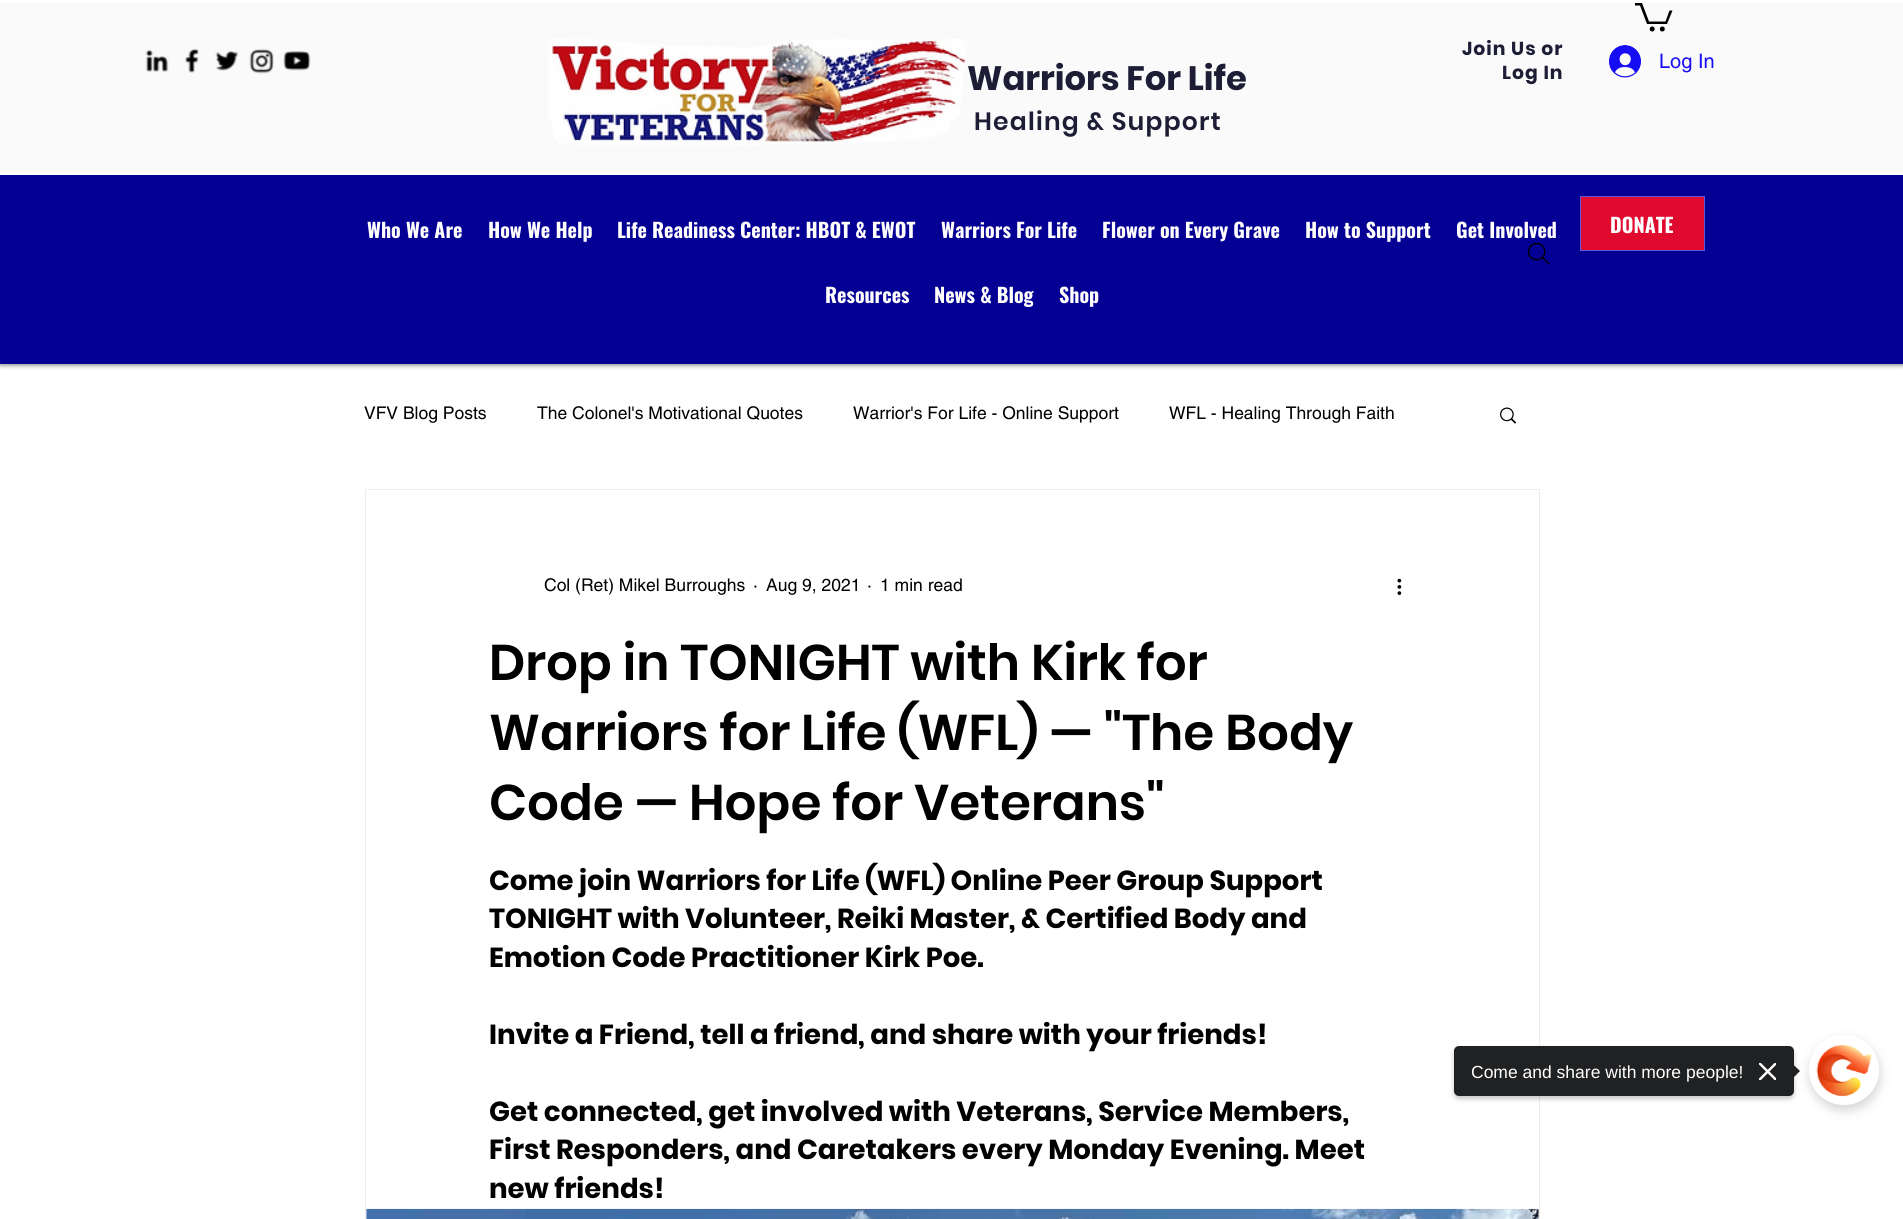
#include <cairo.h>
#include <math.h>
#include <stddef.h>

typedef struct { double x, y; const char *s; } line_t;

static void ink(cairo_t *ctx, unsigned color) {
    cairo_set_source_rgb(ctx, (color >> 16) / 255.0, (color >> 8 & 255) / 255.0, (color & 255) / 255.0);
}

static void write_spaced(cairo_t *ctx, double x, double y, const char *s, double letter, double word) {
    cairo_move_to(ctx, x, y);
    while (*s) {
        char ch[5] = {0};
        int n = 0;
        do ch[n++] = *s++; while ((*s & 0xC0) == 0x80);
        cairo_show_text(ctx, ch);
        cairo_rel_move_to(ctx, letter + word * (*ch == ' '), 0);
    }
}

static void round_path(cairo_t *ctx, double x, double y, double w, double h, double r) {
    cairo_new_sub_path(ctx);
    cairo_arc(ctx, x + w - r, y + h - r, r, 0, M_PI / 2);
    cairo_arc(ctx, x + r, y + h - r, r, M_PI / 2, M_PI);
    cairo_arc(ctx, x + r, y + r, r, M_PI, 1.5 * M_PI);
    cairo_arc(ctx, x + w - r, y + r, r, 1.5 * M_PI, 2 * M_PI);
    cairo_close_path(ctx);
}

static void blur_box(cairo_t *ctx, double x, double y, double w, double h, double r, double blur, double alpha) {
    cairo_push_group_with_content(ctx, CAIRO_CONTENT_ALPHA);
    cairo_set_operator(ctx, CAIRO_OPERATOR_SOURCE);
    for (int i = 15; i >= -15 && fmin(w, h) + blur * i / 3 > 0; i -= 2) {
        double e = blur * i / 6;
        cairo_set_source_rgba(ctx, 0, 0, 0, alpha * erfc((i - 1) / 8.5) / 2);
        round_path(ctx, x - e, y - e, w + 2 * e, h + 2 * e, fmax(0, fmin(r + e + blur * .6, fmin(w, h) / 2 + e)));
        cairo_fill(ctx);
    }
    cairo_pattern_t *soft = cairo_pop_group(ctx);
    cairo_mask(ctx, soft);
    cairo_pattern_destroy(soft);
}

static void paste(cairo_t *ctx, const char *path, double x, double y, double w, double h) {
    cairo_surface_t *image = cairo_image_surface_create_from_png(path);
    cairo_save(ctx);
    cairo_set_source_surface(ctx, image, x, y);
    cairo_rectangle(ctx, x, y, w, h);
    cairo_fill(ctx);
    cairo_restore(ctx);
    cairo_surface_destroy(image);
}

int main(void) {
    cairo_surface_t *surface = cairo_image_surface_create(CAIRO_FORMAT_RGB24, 1903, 1219);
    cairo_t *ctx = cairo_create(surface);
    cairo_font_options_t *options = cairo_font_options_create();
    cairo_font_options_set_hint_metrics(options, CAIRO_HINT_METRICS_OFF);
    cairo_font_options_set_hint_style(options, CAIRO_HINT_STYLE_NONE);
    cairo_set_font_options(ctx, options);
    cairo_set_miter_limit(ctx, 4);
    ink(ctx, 0xFFFFFF);
    cairo_paint(ctx);
    cairo_save(ctx);
    cairo_rectangle(ctx, 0, 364, 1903, 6);
    cairo_clip(ctx);
    ink(ctx, 0x000000);
    blur_box(ctx, 0, 0, 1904, 364, 0, 3, 0.7);
    cairo_restore(ctx);
    ink(ctx, 0xFAFAFA);
    cairo_rectangle(ctx, 0, 3, 1903, 170);
    cairo_fill(ctx);
    ink(ctx, 0x000000);
    cairo_new_path(ctx);
    cairo_move_to(ctx, 1672.5, 10.5);
    cairo_line_to(ctx, 1667, 24);
    cairo_line_to(ctx, 1647, 24);
    cairo_line_to(ctx, 1640, 5.5);
    cairo_line_to(ctx, 1635, 5.5);
    cairo_line_to(ctx, 1635, 3);
    cairo_line_to(ctx, 1642, 3);
    cairo_line_to(ctx, 1649, 21.5);
    cairo_line_to(ctx, 1665.5, 21.5);
    cairo_line_to(ctx, 1669.5, 10.5);
    cairo_fill(ctx);
    cairo_arc(ctx, 1662.3, 29, 2.5, 0, 2 * M_PI);
    cairo_fill(ctx);
    cairo_arc(ctx, 1652.2, 29, 2.5, 0, 2 * M_PI);
    cairo_fill(ctx);
    paste(ctx, "media/1.png", 145, 49, 24, 23);
    paste(ctx, "media/2.png", 185, 48, 14, 25);
    paste(ctx, "media/3.png", 215, 51, 24, 20);
    paste(ctx, "media/4.png", 249, 49, 25, 25);
    paste(ctx, "media/5.png", 283, 51, 28, 20);
    paste(ctx, "media/6.png", 548, 39, 418, 106);
    cairo_select_font_face(ctx, "Poppins", CAIRO_FONT_SLANT_NORMAL, CAIRO_FONT_WEIGHT_BOLD);
    cairo_set_font_size(ctx, 33.75);
    ink(ctx, 0x1D1D36);
    cairo_move_to(ctx, 967, 90);
    cairo_show_text(ctx, "Warriors For Life");
    cairo_select_font_face(ctx, "Poppins SemiBold", CAIRO_FONT_SLANT_NORMAL, CAIRO_FONT_WEIGHT_NORMAL);
    cairo_set_font_size(ctx, 25);
    write_spaced(ctx, 974, 130, "Healing & Support", 1.25, 0);
    cairo_select_font_face(ctx, "Poppins", CAIRO_FONT_SLANT_NORMAL, CAIRO_FONT_WEIGHT_BOLD);
    cairo_set_font_size(ctx, 18.75);
    write_spaced(ctx, 1462, 55, "Join Us or", 1, 0);
    write_spaced(ctx, 1502, 79, "Log In", 1, 0);
    paste(ctx, "media/7.png", 1609, 45, 32, 33);
    cairo_select_font_face(ctx, "helvetica", CAIRO_FONT_SLANT_NORMAL, CAIRO_FONT_WEIGHT_NORMAL);
    cairo_set_font_size(ctx, 20);
    ink(ctx, 0x170DF2);
    cairo_move_to(ctx, 1659, 68);
    cairo_show_text(ctx, "Log In");
    ink(ctx, 0x050094);
    cairo_rectangle(ctx, 0, 175, 1903, 189);
    cairo_fill(ctx);
    cairo_select_font_face(ctx, "Oswald", CAIRO_FONT_SLANT_NORMAL, CAIRO_FONT_WEIGHT_BOLD);
    ink(ctx, 0xFFFFFF);
    {
        static const line_t items[] = {
            {367, 238, "Who We Are"},
            {488, 238, "How We Help"},
            {617, 238, "Life Readiness Center: HBOT & EWOT"},
            {941, 238, "Warriors For Life"},
            {1102, 238, "Flower on Every Grave"},
            {1305, 238, "How to Support"},
            {1456, 238, "Get Involved"},
            {825, 303, "Resources"},
            {934, 303, "News & Blog"},
            {1059, 303, "Shop"},
        };
        for (size_t i = 0; i < sizeof items / sizeof *items; i++) {
            cairo_move_to(ctx, items[i].x, items[i].y);
            cairo_show_text(ctx, items[i].s);
        }
    }
    ink(ctx, 0xE00A2F);
    cairo_rectangle(ctx, 1580.5, 196.5, 124, 54);
    cairo_fill_preserve(ctx);
    ink(ctx, 0x5C5ADB);
    cairo_set_line_width(ctx, 1);
    cairo_stroke(ctx);
    ink(ctx, 0xFFFFFF);
    cairo_move_to(ctx, 1610, 233);
    cairo_show_text(ctx, "DONATE");
    paste(ctx, "media/8.png", 1527, 242, 23, 23);
    cairo_select_font_face(ctx, "helvetica", CAIRO_FONT_SLANT_NORMAL, CAIRO_FONT_WEIGHT_NORMAL);
    cairo_set_font_size(ctx, 17.5);
    ink(ctx, 0x000000);
    {
        static const line_t items[] = {
            {364, 419, "VFV Blog Posts"},
            {537, 419, "The Colonel's Motivational Quotes"},
            {853, 419, "Warrior's For Life - Online Support"},
            {1169, 419, "WFL - Healing Through Faith"},
        };
        for (size_t i = 0; i < sizeof items / sizeof *items; i++) {
            cairo_move_to(ctx, items[i].x, items[i].y);
            cairo_show_text(ctx, items[i].s);
        }
    }
    paste(ctx, "media/9.png", 1500, 407, 17, 17);
    cairo_rectangle(ctx, 365.5, 489.5, 1174, 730);
    ink(ctx, 0xEEECEC);
    cairo_stroke(ctx);
    ink(ctx, 0x000000);
    {
        static const line_t items[] = {
            {544, 591, "Col (Ret) Mikel Burroughs"},
            {753, 591, "·"},
            {766, 591, "Aug 9, 2021"},
            {867, 591, "·"},
            {880, 591, "1 min read"},
        };
        for (size_t i = 0; i < sizeof items / sizeof *items; i++) {
            cairo_move_to(ctx, items[i].x, items[i].y);
            cairo_show_text(ctx, items[i].s);
        }
    }
    paste(ctx, "media/10.png", 1397, 578, 5, 17);
    cairo_select_font_face(ctx, "Poppins SemiBold", CAIRO_FONT_SLANT_NORMAL, CAIRO_FONT_WEIGHT_NORMAL);
    cairo_set_font_size(ctx, 50);
    {
        static const line_t items[] = {
            {489, 680, "Drop in TONIGHT with Kirk for"},
            {489, 750, "Warriors for Life (WFL) — \"The Body"},
            {489, 820, "Code — Hope for Veterans\""},
        };
        for (size_t i = 0; i < sizeof items / sizeof *items; i++) {
            cairo_move_to(ctx, items[i].x, items[i].y);
            cairo_show_text(ctx, items[i].s);
        }
    }
    cairo_select_font_face(ctx, "Poppins", CAIRO_FONT_SLANT_NORMAL, CAIRO_FONT_WEIGHT_BOLD);
    cairo_set_font_size(ctx, 27.5);
    {
        static const line_t items[] = {
            {489, 890, "Come join Warriors for Life (WFL) Online Peer Group Support"},
            {489, 928, "TONIGHT with Volunteer, Reiki Master, & Certified Body and"},
            {489, 967, "Emotion Code Practitioner Kirk Poe."},
            {489, 1044, "Invite a Friend, tell a friend, and share with your friends!"},
            {489, 1121, "Get connected, get involved with Veterans, Service Members,"},
            {489, 1159, "First Responders, and Caretakers every Monday Evening. Meet"},
            {489, 1198, "new friends!"},
        };
        for (size_t i = 0; i < sizeof items / sizeof *items; i++) {
            cairo_move_to(ctx, items[i].x, items[i].y);
            cairo_show_text(ctx, items[i].s);
        }
    }
    paste(ctx, "media/11.png", 366, 1208, 1173, 11);
    cairo_save(ctx);
    cairo_set_fill_rule(ctx, CAIRO_FILL_RULE_EVEN_ODD);
    cairo_new_path(ctx);
    cairo_move_to(ctx, 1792, 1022);
    cairo_line_to(ctx, 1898, 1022);
    cairo_line_to(ctx, 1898, 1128);
    cairo_line_to(ctx, 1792, 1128);
    cairo_close_path(ctx);
    cairo_move_to(ctx, 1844, 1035);
    cairo_curve_to(ctx, 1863.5, 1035, 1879, 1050.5, 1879, 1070);
    cairo_curve_to(ctx, 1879, 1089.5, 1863.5, 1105, 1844, 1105);
    cairo_curve_to(ctx, 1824.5, 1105, 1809, 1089.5, 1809, 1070);
    cairo_curve_to(ctx, 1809, 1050.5, 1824.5, 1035, 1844, 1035);
    cairo_close_path(ctx);
    cairo_clip(ctx);
    ink(ctx, 0x000000);
    blur_box(ctx, 1810, 1040, 70, 70, 35, 5.5, 0.17);
    cairo_restore(ctx);
    ink(ctx, 0x000000);
    blur_box(ctx, 1454, 1049, 340, 50, 5, 2.5, 0.22);
    ink(ctx, 0x202123);
    round_path(ctx, 1454, 1046, 340, 50, 5);
    cairo_fill(ctx);
    cairo_select_font_face(ctx, "Liberation Sans", CAIRO_FONT_SLANT_NORMAL, CAIRO_FONT_WEIGHT_NORMAL);
    cairo_set_font_size(ctx, 17.5);
    ink(ctx, 0xFFFFFF);
    cairo_move_to(ctx, 1471, 1078);
    cairo_show_text(ctx, "Come and share with more people!");
    paste(ctx, "media/12.png", 1759, 1063, 17, 17);
    ink(ctx, 0x202123);
    cairo_new_path(ctx);
    cairo_move_to(ctx, 1791, 1080);
    cairo_line_to(ctx, 1791, 1062.5);
    cairo_line_to(ctx, 1800, 1071);
    cairo_close_path(ctx);
    cairo_fill(ctx);
    paste(ctx, "media/13.png", 1814, 1045, 65, 59);
    cairo_surface_write_to_png(surface, "image.png");
    cairo_font_options_destroy(options);
    cairo_destroy(ctx);
    cairo_surface_destroy(surface);
    return 0;
}
